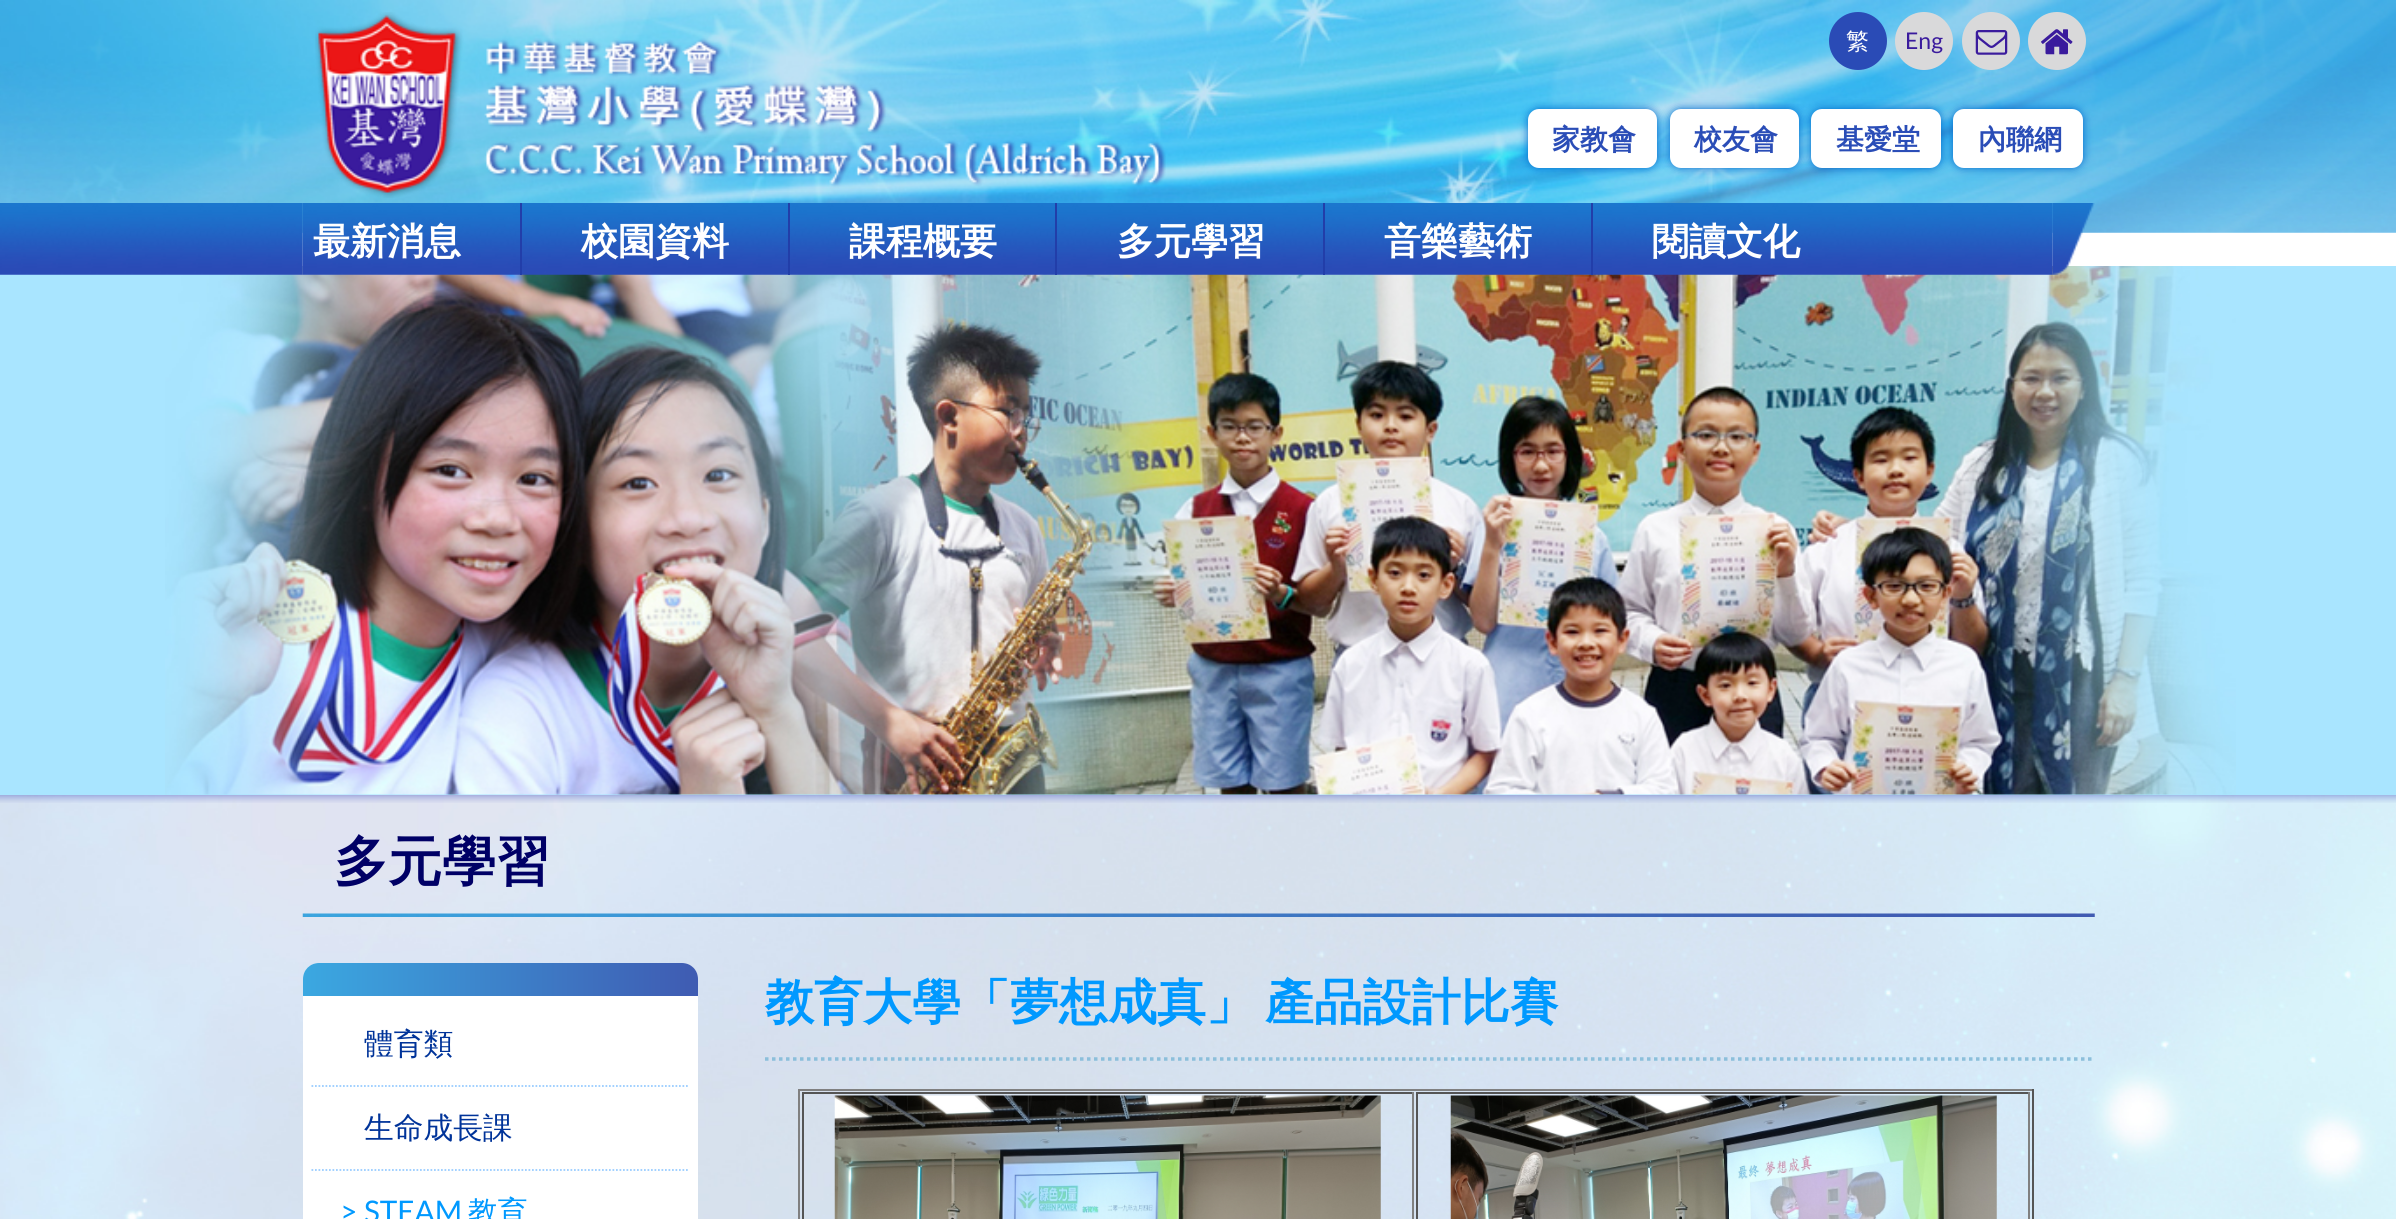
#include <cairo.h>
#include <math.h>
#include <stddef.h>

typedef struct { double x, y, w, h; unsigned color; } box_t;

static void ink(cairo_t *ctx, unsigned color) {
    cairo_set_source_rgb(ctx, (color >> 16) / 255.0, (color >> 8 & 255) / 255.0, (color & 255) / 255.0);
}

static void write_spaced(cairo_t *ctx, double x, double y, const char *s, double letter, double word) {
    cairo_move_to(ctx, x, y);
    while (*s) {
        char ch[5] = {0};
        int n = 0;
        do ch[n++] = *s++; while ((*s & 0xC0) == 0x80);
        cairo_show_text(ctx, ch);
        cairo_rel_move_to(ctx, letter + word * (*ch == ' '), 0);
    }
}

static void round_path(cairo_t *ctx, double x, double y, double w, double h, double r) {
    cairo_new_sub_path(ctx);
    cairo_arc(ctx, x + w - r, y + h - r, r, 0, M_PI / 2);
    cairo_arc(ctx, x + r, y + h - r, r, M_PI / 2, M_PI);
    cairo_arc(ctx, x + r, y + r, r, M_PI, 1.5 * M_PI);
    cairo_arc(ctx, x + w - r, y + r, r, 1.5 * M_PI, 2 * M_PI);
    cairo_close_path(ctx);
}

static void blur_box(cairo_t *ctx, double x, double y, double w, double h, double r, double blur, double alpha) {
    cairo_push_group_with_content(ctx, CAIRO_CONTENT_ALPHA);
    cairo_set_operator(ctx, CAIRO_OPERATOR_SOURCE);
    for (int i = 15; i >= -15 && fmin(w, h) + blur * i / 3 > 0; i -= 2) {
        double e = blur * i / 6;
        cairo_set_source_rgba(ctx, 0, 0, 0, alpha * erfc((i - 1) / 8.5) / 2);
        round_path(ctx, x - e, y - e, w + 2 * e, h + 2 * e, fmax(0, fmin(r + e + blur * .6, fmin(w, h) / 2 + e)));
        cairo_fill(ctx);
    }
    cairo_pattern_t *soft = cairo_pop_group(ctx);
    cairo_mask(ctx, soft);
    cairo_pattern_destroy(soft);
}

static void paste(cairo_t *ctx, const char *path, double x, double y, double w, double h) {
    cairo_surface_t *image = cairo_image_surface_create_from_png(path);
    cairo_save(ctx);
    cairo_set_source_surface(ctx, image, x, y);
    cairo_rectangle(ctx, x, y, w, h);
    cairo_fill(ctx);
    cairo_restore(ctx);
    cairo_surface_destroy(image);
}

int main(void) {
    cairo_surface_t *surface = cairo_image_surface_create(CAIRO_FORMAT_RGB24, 2396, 1219);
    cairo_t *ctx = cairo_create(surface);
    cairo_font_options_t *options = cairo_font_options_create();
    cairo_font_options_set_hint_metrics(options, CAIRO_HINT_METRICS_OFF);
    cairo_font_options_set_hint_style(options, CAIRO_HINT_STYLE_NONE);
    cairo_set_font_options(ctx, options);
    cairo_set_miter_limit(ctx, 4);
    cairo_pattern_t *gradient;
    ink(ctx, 0xFFFFFF);
    cairo_paint(ctx);
    paste(ctx, "media/1.png", 0, 0, 2396, 233);
    paste(ctx, "media/2.png", 315, 12, 851, 186);
    ink(ctx, 0x2A4BB6);
    cairo_arc(ctx, 1858, 41, 29, 0, 2 * M_PI);
    cairo_fill(ctx);
    cairo_select_font_face(ctx, "WenQuanYi Zen Hei Medium", CAIRO_FONT_SLANT_NORMAL, CAIRO_FONT_WEIGHT_NORMAL);
    cairo_set_font_size(ctx, 23);
    ink(ctx, 0xFFFFFF);
    cairo_move_to(ctx, 1846, 49);
    cairo_show_text(ctx, "繁");
    ink(ctx, 0xD9D9DA);
    cairo_new_path(ctx);
    cairo_arc(ctx, 1924, 41, 29, 0, 2 * M_PI);
    cairo_fill(ctx);
    cairo_select_font_face(ctx, "Lato", CAIRO_FONT_SLANT_NORMAL, CAIRO_FONT_WEIGHT_NORMAL);
    ink(ctx, 0x3A1B9D);
    cairo_move_to(ctx, 1905, 49);
    cairo_show_text(ctx, "Eng");
    ink(ctx, 0xD9D9DA);
    cairo_new_path(ctx);
    cairo_arc(ctx, 1991, 41, 29, 0, 2 * M_PI);
    cairo_fill(ctx);
    paste(ctx, "media/3.png", 1975, 30, 33, 25);
    cairo_arc(ctx, 2057, 41, 29, 0, 2 * M_PI);
    cairo_fill(ctx);
    paste(ctx, "media/4.png", 2041, 29, 32, 26);
    ink(ctx, 0x0066CC);
    blur_box(ctx, 1528, 109, 129, 59, 11, 4.5, 1);
    ink(ctx, 0xFFFFFF);
    round_path(ctx, 1528, 109, 129, 59, 11);
    cairo_fill(ctx);
    cairo_select_font_face(ctx, "WenQuanYi Zen Hei", CAIRO_FONT_SLANT_NORMAL, CAIRO_FONT_WEIGHT_BOLD);
    cairo_set_font_size(ctx, 28);
    ink(ctx, 0x2A4DB7);
    cairo_move_to(ctx, 1552, 149);
    cairo_show_text(ctx, "家教會");
    ink(ctx, 0x0066CC);
    blur_box(ctx, 1670, 109, 129, 59, 11, 4.5, 1);
    ink(ctx, 0xFFFFFF);
    round_path(ctx, 1670, 109, 129, 59, 11);
    cairo_fill(ctx);
    ink(ctx, 0x2A4DB7);
    cairo_move_to(ctx, 1694, 149);
    cairo_show_text(ctx, "校友會");
    ink(ctx, 0x0066CC);
    blur_box(ctx, 1811, 109, 130, 59, 11, 4.5, 1);
    ink(ctx, 0xFFFFFF);
    round_path(ctx, 1811, 109, 130, 59, 11);
    cairo_fill(ctx);
    ink(ctx, 0x2A4DB7);
    cairo_move_to(ctx, 1836, 149);
    cairo_show_text(ctx, "基愛堂");
    ink(ctx, 0x0066CC);
    blur_box(ctx, 1953, 109, 130, 59, 11, 4.5, 1);
    ink(ctx, 0xFFFFFF);
    round_path(ctx, 1953, 109, 130, 59, 11);
    cairo_fill(ctx);
    ink(ctx, 0x2A4DB7);
    cairo_move_to(ctx, 1978, 149);
    cairo_show_text(ctx, "內聯網");
    ink(ctx, 0xA9E5FF);
    cairo_rectangle(ctx, 0, 266, 2396, 529);
    cairo_fill(ctx);
    paste(ctx, "media/8.png", 165, 266, 2071, 529);
    paste(ctx, "media/5.png", 302, 203, 1751, 72);
    paste(ctx, "media/6.png", 0, 203, 303, 72);
    cairo_set_font_size(ctx, 37);
    ink(ctx, 0xFFFFFF);
    cairo_move_to(ctx, 313, 254);
    cairo_show_text(ctx, "最新消息");
    ink(ctx, 0x223EA9);
    cairo_rectangle(ctx, 520, 203, 2, 72);
    cairo_fill(ctx);
    ink(ctx, 0xFFFFFF);
    cairo_move_to(ctx, 581, 254);
    cairo_show_text(ctx, "校園資料");
    ink(ctx, 0x223EA9);
    cairo_rectangle(ctx, 788, 203, 2, 72);
    cairo_fill(ctx);
    ink(ctx, 0xFFFFFF);
    cairo_move_to(ctx, 849, 254);
    cairo_show_text(ctx, "課程概要");
    ink(ctx, 0x223EA9);
    cairo_rectangle(ctx, 1055, 203, 2, 72);
    cairo_fill(ctx);
    ink(ctx, 0xFFFFFF);
    cairo_move_to(ctx, 1117, 254);
    cairo_show_text(ctx, "多元學習");
    ink(ctx, 0x223EA9);
    cairo_rectangle(ctx, 1323, 203, 2, 72);
    cairo_fill(ctx);
    ink(ctx, 0xFFFFFF);
    cairo_move_to(ctx, 1384, 254);
    cairo_show_text(ctx, "音樂藝術");
    ink(ctx, 0x223EA9);
    cairo_rectangle(ctx, 1591, 203, 2, 72);
    cairo_fill(ctx);
    ink(ctx, 0xFFFFFF);
    cairo_move_to(ctx, 1652, 254);
    cairo_show_text(ctx, "閱讀文化");
    paste(ctx, "media/7.png", 2052, 203, 43, 72);
    paste(ctx, "media/9.png", 0, 795, 2396, 424);
    paste(ctx, "media/10.png", 0, 795, 2396, 8);
    paste(ctx, "media/11.png", 302, 913, 1793, 4);
    cairo_set_font_size(ctx, 54);
    ink(ctx, 0x000066);
    cairo_move_to(ctx, 334, 880);
    cairo_show_text(ctx, "多元學習");
    cairo_new_path(ctx);
    cairo_move_to(ctx, 765, 1059);
    cairo_line_to(ctx, 2095, 1059);
    ink(ctx, 0x8CBFDB);
    cairo_set_line_width(ctx, 3.5);
    cairo_set_dash(ctx, (double[]){3.5, 3.5}, 2, 0);
    cairo_stroke(ctx);
    cairo_set_font_size(ctx, 49);
    ink(ctx, 0x0099FF);
    write_spaced(ctx, 765, 1019, "教育大學「夢想成真」 產品設計比賽", 0, -5);
    {
        static const box_t items[] = {
            {798, 1089, 1236, 2, 0x808080},
            {2032, 1089, 2, 130, 0x555555},
            {798, 1089, 2, 130, 0x808080},
            {802, 1092, 612, 2, 0x555555},
            {1412, 1092, 2, 127, 0x808080},
            {802, 1092, 2, 127, 0x555555},
        };
        for (size_t i = 0; i < sizeof items / sizeof *items; i++) {
            ink(ctx, items[i].color);
            cairo_rectangle(ctx, items[i].x, items[i].y, items[i].w, items[i].h);
            cairo_fill(ctx);
        }
    }
    paste(ctx, "media/12.png", 834, 1095, 547, 124);
    {
        static const box_t items[] = {
            {1416, 1092, 614, 2, 0x555555},
            {2028, 1092, 2, 127, 0x808080},
            {1416, 1092, 2, 127, 0x555555},
        };
        for (size_t i = 0; i < sizeof items / sizeof *items; i++) {
            ink(ctx, items[i].color);
            cairo_rectangle(ctx, items[i].x, items[i].y, items[i].w, items[i].h);
            cairo_fill(ctx);
        }
    }
    paste(ctx, "media/13.png", 1450, 1095, 547, 124);
    ink(ctx, 0xFFFFFF);
    round_path(ctx, 303, 963, 395, 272, 16);
    cairo_fill(ctx);
    gradient = cairo_pattern_create_linear(303, 979, 698, 979);
    cairo_pattern_add_color_stop_rgba(gradient, 0, 0.231, 0.659, 0.882, 1);
    cairo_pattern_add_color_stop_rgba(gradient, 1, 0.247, 0.357, 0.698, 1);
    cairo_set_source(ctx, gradient);
    cairo_pattern_destroy(gradient);
    cairo_new_path(ctx);
    cairo_move_to(ctx, 319, 963);
    cairo_line_to(ctx, 682, 963);
    cairo_curve_to(ctx, 691, 963, 698, 970, 698, 979);
    cairo_line_to(ctx, 698, 996);
    cairo_line_to(ctx, 303, 996);
    cairo_line_to(ctx, 303, 979);
    cairo_curve_to(ctx, 303, 970, 310, 963, 319, 963);
    cairo_close_path(ctx);
    cairo_fill(ctx);
    cairo_select_font_face(ctx, "WenQuanYi Zen Hei Medium", CAIRO_FONT_SLANT_NORMAL, CAIRO_FONT_WEIGHT_NORMAL);
    cairo_set_font_size(ctx, 29.75);
    ink(ctx, 0x003399);
    cairo_move_to(ctx, 364, 1054);
    cairo_show_text(ctx, "體育類");
    cairo_new_path(ctx);
    cairo_move_to(ctx, 311.5, 1086);
    cairo_line_to(ctx, 689.5, 1086);
    ink(ctx, 0x99CCFF);
    cairo_set_line_width(ctx, 1.8);
    cairo_set_dash(ctx, (double[]){1.75, 1.75}, 2, 0);
    cairo_stroke(ctx);
    ink(ctx, 0x003399);
    cairo_move_to(ctx, 364, 1138);
    cairo_show_text(ctx, "生命成長課");
    cairo_new_path(ctx);
    cairo_move_to(ctx, 311.5, 1170);
    cairo_line_to(ctx, 689.5, 1170);
    ink(ctx, 0x99CCFF);
    cairo_stroke(ctx);
    cairo_select_font_face(ctx, "Lato", CAIRO_FONT_SLANT_NORMAL, CAIRO_FONT_WEIGHT_NORMAL);
    ink(ctx, 0x0099FF);
    cairo_move_to(ctx, 340, 1222);
    cairo_show_text(ctx, ">");
    cairo_move_to(ctx, 364, 1222);
    cairo_show_text(ctx, "STEAM");
    cairo_select_font_face(ctx, "WenQuanYi Zen Hei Medium", CAIRO_FONT_SLANT_NORMAL, CAIRO_FONT_WEIGHT_NORMAL);
    cairo_move_to(ctx, 468, 1222);
    cairo_show_text(ctx, "教育");
    cairo_surface_write_to_png(surface, "image.png");
    cairo_font_options_destroy(options);
    cairo_destroy(ctx);
    cairo_surface_destroy(surface);
    return 0;
}
